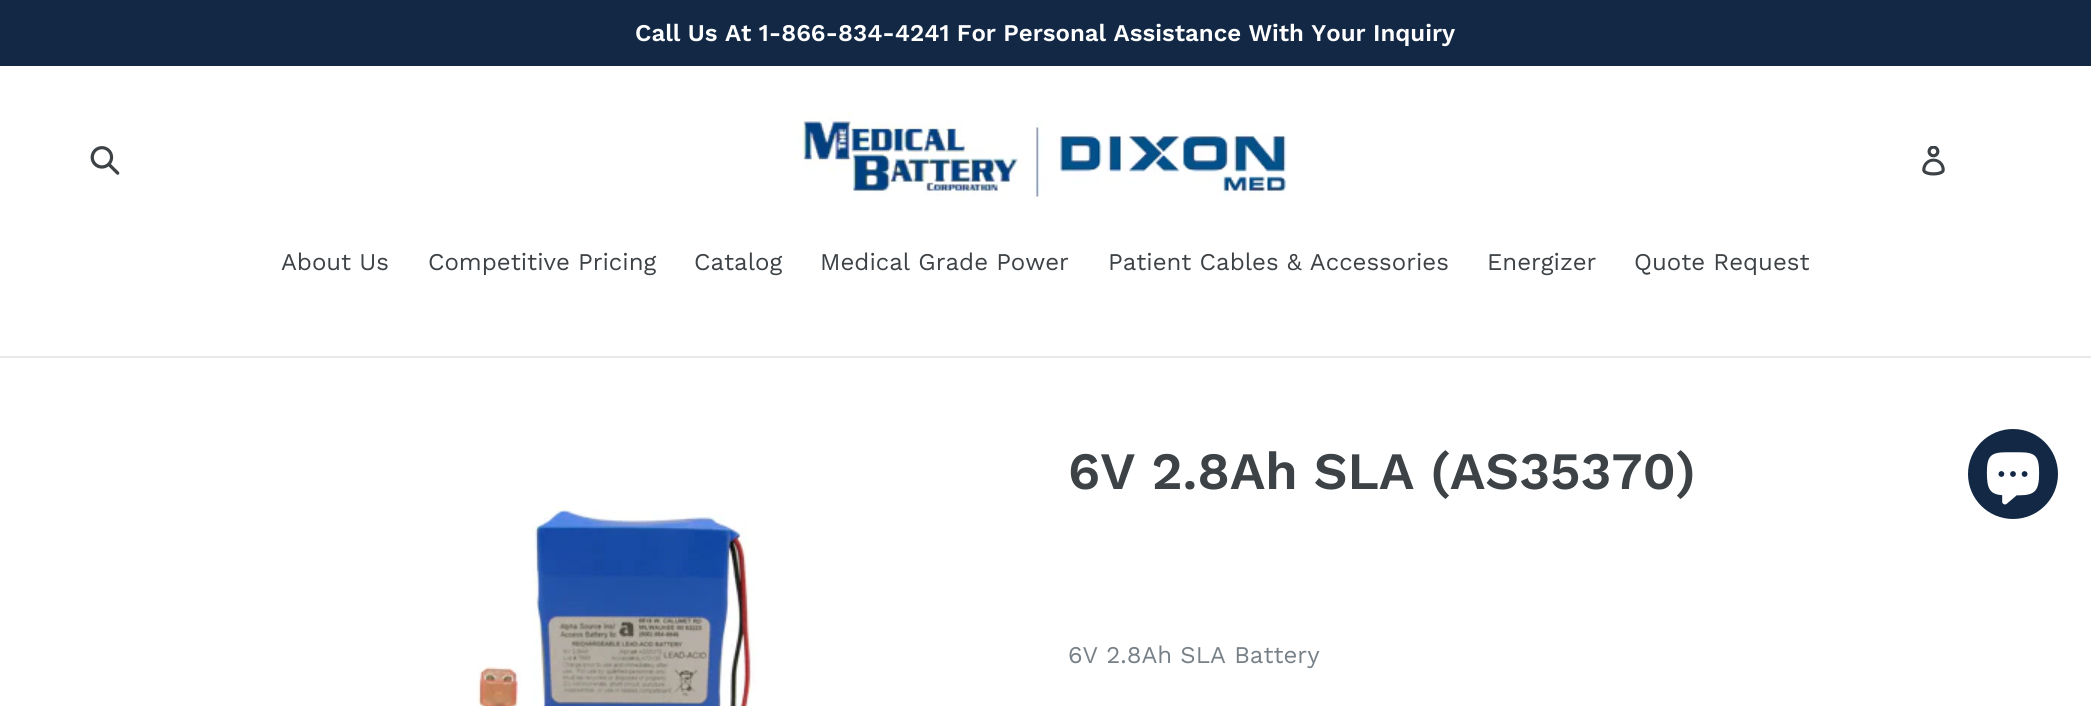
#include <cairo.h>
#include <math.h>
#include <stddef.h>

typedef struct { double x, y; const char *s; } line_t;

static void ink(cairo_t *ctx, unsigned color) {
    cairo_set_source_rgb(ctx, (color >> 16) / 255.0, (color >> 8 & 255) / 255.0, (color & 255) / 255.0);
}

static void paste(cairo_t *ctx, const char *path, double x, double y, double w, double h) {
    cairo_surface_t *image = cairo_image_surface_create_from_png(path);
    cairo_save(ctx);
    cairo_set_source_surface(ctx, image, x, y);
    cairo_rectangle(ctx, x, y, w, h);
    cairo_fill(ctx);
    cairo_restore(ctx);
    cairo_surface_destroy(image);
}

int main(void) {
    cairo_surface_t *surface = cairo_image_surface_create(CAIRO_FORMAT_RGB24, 2091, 706);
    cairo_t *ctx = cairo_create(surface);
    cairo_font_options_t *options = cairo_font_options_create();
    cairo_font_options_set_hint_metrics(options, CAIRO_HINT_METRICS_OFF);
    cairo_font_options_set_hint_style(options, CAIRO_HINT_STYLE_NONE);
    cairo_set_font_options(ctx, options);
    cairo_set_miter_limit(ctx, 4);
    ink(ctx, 0xFFFFFF);
    cairo_paint(ctx);
    ink(ctx, 0x122845);
    cairo_rectangle(ctx, 0, 0, 2091, 66);
    cairo_fill(ctx);
    cairo_select_font_face(ctx, "Work Sans SemiBold", CAIRO_FONT_SLANT_NORMAL, CAIRO_FONT_WEIGHT_NORMAL);
    cairo_set_font_size(ctx, 24);
    ink(ctx, 0xFFFFFF);
    cairo_move_to(ctx, 635, 41);
    cairo_show_text(ctx, "Call Us At 1-866-834-4241 For Personal Assistance With Your Inquiry");
    paste(ctx, "media/1.png", 90, 146, 30, 29);
    paste(ctx, "media/2.png", 793, 111, 494, 86);
    paste(ctx, "media/3.png", 1922, 146, 23, 30);
    ink(ctx, 0xE8E9EB);
    cairo_rectangle(ctx, 0, 356, 2091, 2);
    cairo_fill(ctx);
    cairo_select_font_face(ctx, "Work Sans", CAIRO_FONT_SLANT_NORMAL, CAIRO_FONT_WEIGHT_NORMAL);
    ink(ctx, 0x3D4246);
    {
        static const line_t items[] = {
            {281, 270, "About Us"},
            {428, 270, "Competitive Pricing"},
            {694, 270, "Catalog"},
            {820, 270, "Medical Grade Power"},
            {1108, 270, "Patient Cables & Accessories"},
            {1487, 270, "Energizer"},
            {1634, 270, "Quote Request"},
        };
        for (size_t i = 0; i < sizeof items / sizeof *items; i++) {
            cairo_move_to(ctx, items[i].x, items[i].y);
            cairo_show_text(ctx, items[i].s);
        }
    }
    paste(ctx, "media/4.png", 477, 506, 280, 200);
    cairo_select_font_face(ctx, "Work Sans SemiBold", CAIRO_FONT_SLANT_NORMAL, CAIRO_FONT_WEIGHT_NORMAL);
    cairo_set_font_size(ctx, 52.5);
    cairo_move_to(ctx, 1068, 489);
    cairo_show_text(ctx, "6V 2.8Ah SLA (AS35370)");
    cairo_select_font_face(ctx, "Work Sans", CAIRO_FONT_SLANT_NORMAL, CAIRO_FONT_WEIGHT_NORMAL);
    cairo_set_font_size(ctx, 24);
    ink(ctx, 0x788188);
    cairo_move_to(ctx, 1068, 663);
    cairo_show_text(ctx, "6V 2.8Ah SLA Battery");
    ink(ctx, 0x122845);
    cairo_new_path(ctx);
    cairo_arc(ctx, 2013, 474, 45, 0, 2 * M_PI);
    cairo_fill(ctx);
    paste(ctx, "media/5.png", 1986, 452, 54, 53);
    cairo_surface_write_to_png(surface, "image.png");
    cairo_font_options_destroy(options);
    cairo_destroy(ctx);
    cairo_surface_destroy(surface);
    return 0;
}
